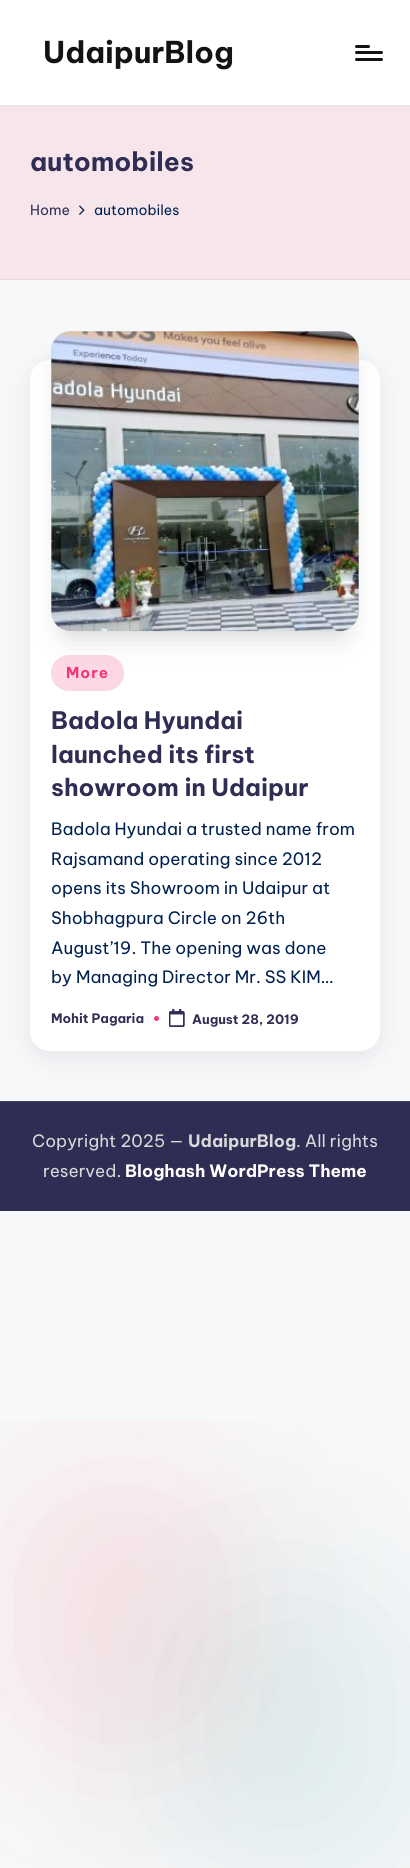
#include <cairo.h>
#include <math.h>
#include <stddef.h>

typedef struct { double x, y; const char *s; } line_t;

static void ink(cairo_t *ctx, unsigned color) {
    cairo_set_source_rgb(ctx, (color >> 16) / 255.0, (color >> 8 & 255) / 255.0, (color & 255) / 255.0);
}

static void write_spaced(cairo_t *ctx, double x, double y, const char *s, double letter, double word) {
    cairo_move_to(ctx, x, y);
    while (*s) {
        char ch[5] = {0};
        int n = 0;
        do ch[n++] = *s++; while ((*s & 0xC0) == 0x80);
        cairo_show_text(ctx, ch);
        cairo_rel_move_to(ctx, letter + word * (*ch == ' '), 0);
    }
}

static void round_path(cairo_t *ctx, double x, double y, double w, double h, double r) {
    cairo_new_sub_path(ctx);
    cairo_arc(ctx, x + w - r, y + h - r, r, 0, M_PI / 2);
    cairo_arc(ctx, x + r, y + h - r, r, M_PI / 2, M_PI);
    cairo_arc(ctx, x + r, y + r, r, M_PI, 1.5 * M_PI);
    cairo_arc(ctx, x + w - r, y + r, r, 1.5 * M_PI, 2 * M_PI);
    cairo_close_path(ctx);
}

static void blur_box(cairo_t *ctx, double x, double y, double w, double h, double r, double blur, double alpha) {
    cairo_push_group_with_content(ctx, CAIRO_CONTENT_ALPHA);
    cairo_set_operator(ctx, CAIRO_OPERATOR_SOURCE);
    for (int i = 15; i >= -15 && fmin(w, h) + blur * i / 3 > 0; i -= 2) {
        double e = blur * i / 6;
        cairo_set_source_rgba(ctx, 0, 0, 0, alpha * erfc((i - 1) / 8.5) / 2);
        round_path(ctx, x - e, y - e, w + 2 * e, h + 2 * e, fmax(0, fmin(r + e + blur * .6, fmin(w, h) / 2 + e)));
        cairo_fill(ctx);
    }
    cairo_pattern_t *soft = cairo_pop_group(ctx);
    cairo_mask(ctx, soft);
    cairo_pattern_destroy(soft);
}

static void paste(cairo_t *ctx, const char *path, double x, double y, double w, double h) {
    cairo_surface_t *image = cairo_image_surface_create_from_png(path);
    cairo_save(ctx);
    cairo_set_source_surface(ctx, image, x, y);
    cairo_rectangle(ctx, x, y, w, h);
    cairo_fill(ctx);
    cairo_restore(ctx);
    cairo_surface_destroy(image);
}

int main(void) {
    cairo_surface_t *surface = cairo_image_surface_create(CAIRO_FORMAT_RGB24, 410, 1868);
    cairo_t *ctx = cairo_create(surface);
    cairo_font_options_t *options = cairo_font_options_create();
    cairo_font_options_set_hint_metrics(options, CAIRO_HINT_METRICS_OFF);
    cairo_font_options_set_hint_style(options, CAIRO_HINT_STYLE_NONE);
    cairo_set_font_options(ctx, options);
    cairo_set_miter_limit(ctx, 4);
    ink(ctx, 0xF7F8F9);
    cairo_paint(ctx);
    ink(ctx, 0xFFFFFF);
    cairo_rectangle(ctx, 0, 0, 410, 105);
    cairo_fill(ctx);
    ink(ctx, 0xE3E3E3);
    cairo_rectangle(ctx, 0, 105, 410, 1);
    cairo_fill(ctx);
    cairo_select_font_face(ctx, "Be Vietnam Pro", CAIRO_FONT_SLANT_NORMAL, CAIRO_FONT_WEIGHT_BOLD);
    cairo_set_font_size(ctx, 30);
    ink(ctx, 0x131315);
    cairo_move_to(ctx, 43, 63);
    cairo_show_text(ctx, "UdaipurBlog");
    round_path(ctx, 355, 51, 28, 3, 1.5);
    cairo_fill(ctx);
    round_path(ctx, 355, 45, 15, 3, 1.5);
    cairo_fill(ctx);
    round_path(ctx, 355, 58, 28, 3, 1.5);
    cairo_fill(ctx);
    ink(ctx, 0xF7E5EC);
    cairo_rectangle(ctx, 0, 106, 410, 173);
    cairo_fill(ctx);
    ink(ctx, 0xE7D7DD);
    cairo_rectangle(ctx, 0, 279, 410, 1);
    cairo_fill(ctx);
    cairo_set_font_size(ctx, 26);
    ink(ctx, 0x302D55);
    cairo_move_to(ctx, 30, 171);
    cairo_show_text(ctx, "automobiles");
    cairo_select_font_face(ctx, "Be Vietnam Pro", CAIRO_FONT_SLANT_NORMAL, CAIRO_FONT_WEIGHT_NORMAL);
    cairo_set_font_size(ctx, 14);
    cairo_move_to(ctx, 30, 215);
    cairo_show_text(ctx, "Home");
    paste(ctx, "media/1.png", 79, 205, 6, 10);
    ink(ctx, 0x002050);
    cairo_move_to(ctx, 94, 215);
    cairo_show_text(ctx, "automobiles");
    ink(ctx, 0x454360);
    blur_box(ctx, 30, 366, 350, 692, 20, 12.5, 0.1);
    ink(ctx, 0xFFFFFF);
    round_path(ctx, 30, 360, 350, 691, 20);
    cairo_fill(ctx);
    ink(ctx, 0xFDD7E4);
    round_path(ctx, 51, 655, 73, 36, 18);
    cairo_fill(ctx);
    ink(ctx, 0x000000);
    blur_box(ctx, 64, 359, 282, 276, 8, 14, 0.18);
    ink(ctx, 0xD1D1D1);
    round_path(ctx, 51, 331, 308, 300, 20);
    cairo_fill(ctx);
    paste(ctx, "media/2.png", 51, 331, 308, 301);
    cairo_select_font_face(ctx, "Be Vietnam Pro", CAIRO_FONT_SLANT_NORMAL, CAIRO_FONT_WEIGHT_BOLD);
    cairo_set_font_size(ctx, 15);
    ink(ctx, 0xF43676);
    write_spaced(ctx, 66, 678, "More", 1, 0);
    cairo_set_font_size(ctx, 24);
    ink(ctx, 0x302D55);
    {
        static const line_t items[] = {
            {51, 729, "Badola Hyundai"},
            {51, 763, "launched its first"},
            {51, 796, "showroom in Udaipur"},
        };
        for (size_t i = 0; i < sizeof items / sizeof *items; i++) {
            cairo_move_to(ctx, items[i].x, items[i].y);
            cairo_show_text(ctx, items[i].s);
        }
    }
    cairo_select_font_face(ctx, "Be Vietnam Pro", CAIRO_FONT_SLANT_NORMAL, CAIRO_FONT_WEIGHT_NORMAL);
    cairo_set_font_size(ctx, 17);
    ink(ctx, 0x002050);
    {
        static const line_t items[] = {
            {51, 835, "Badola Hyundai a trusted name from"},
            {51, 865, "Rajsamand operating since 2012"},
            {51, 894, "opens its Showroom in Udaipur at"},
            {51, 924, "Shobhagpura Circle on 26th"},
            {51, 954, "August’19. The opening was done"},
            {51, 983, "by Managing Director Mr. SS KIM…"},
        };
        for (size_t i = 0; i < sizeof items / sizeof *items; i++) {
            cairo_move_to(ctx, items[i].x, items[i].y);
            cairo_show_text(ctx, items[i].s);
        }
    }
    cairo_select_font_face(ctx, "Be Vietnam Pro", CAIRO_FONT_SLANT_NORMAL, CAIRO_FONT_WEIGHT_BOLD);
    cairo_set_font_size(ctx, 13);
    ink(ctx, 0x302D55);
    cairo_move_to(ctx, 51, 1023);
    cairo_show_text(ctx, "Mohit Pagaria");
    ink(ctx, 0xF43676);
    cairo_new_path(ctx);
    cairo_arc(ctx, 156.5, 1018.5, 2.5, 0, 2 * M_PI);
    cairo_fill(ctx);
    paste(ctx, "media/3.png", 169, 1009, 16, 18);
    ink(ctx, 0x302D55);
    cairo_move_to(ctx, 192, 1024);
    cairo_show_text(ctx, "August 28, 2019");
    cairo_save(ctx);
    cairo_rectangle(ctx, 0, 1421, 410, 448);
    cairo_clip(ctx);
    ink(ctx, 0xF7E3E6);
    blur_box(ctx, 0, 1471, 245, 288, 122.5, 80, 1);
    cairo_restore(ctx);
    ink(ctx, 0x04868B);
    blur_box(ctx, 165, 1581, 245, 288, 122.5, 80, 0.1);
    ink(ctx, 0x302D55);
    cairo_rectangle(ctx, 0, 1102, 410, 109);
    cairo_fill(ctx);
    ink(ctx, 0x454266);
    cairo_rectangle(ctx, 0, 1101, 410, 1);
    cairo_fill(ctx);
    cairo_select_font_face(ctx, "Be Vietnam Pro", CAIRO_FONT_SLANT_NORMAL, CAIRO_FONT_WEIGHT_NORMAL);
    cairo_set_font_size(ctx, 17);
    ink(ctx, 0xD9D9D9);
    cairo_move_to(ctx, 32, 1147);
    cairo_show_text(ctx, "Copyright 2025 —");
    cairo_select_font_face(ctx, "Be Vietnam Pro", CAIRO_FONT_SLANT_NORMAL, CAIRO_FONT_WEIGHT_BOLD);
    cairo_move_to(ctx, 188, 1147);
    cairo_show_text(ctx, "UdaipurBlog");
    cairo_select_font_face(ctx, "Be Vietnam Pro", CAIRO_FONT_SLANT_NORMAL, CAIRO_FONT_WEIGHT_NORMAL);
    cairo_move_to(ctx, 296, 1147);
    cairo_show_text(ctx, ". All rights");
    cairo_move_to(ctx, 43, 1177);
    cairo_show_text(ctx, "reserved.");
    cairo_select_font_face(ctx, "Be Vietnam Pro", CAIRO_FONT_SLANT_NORMAL, CAIRO_FONT_WEIGHT_BOLD);
    ink(ctx, 0xFFFFFF);
    cairo_move_to(ctx, 125, 1177);
    cairo_show_text(ctx, "Bloghash WordPress Theme");
    cairo_surface_write_to_png(surface, "image.png");
    cairo_font_options_destroy(options);
    cairo_destroy(ctx);
    cairo_surface_destroy(surface);
    return 0;
}
